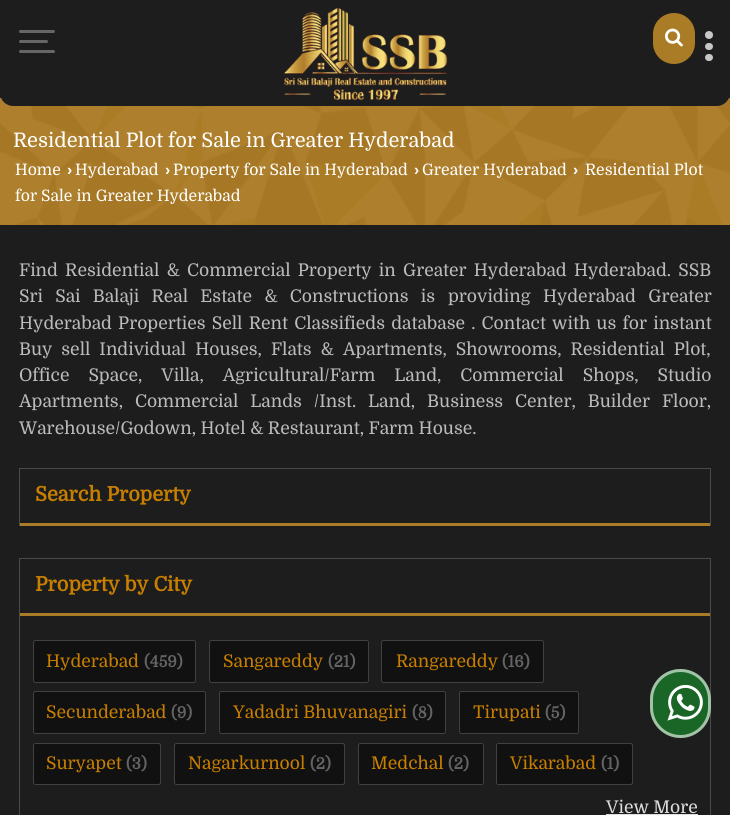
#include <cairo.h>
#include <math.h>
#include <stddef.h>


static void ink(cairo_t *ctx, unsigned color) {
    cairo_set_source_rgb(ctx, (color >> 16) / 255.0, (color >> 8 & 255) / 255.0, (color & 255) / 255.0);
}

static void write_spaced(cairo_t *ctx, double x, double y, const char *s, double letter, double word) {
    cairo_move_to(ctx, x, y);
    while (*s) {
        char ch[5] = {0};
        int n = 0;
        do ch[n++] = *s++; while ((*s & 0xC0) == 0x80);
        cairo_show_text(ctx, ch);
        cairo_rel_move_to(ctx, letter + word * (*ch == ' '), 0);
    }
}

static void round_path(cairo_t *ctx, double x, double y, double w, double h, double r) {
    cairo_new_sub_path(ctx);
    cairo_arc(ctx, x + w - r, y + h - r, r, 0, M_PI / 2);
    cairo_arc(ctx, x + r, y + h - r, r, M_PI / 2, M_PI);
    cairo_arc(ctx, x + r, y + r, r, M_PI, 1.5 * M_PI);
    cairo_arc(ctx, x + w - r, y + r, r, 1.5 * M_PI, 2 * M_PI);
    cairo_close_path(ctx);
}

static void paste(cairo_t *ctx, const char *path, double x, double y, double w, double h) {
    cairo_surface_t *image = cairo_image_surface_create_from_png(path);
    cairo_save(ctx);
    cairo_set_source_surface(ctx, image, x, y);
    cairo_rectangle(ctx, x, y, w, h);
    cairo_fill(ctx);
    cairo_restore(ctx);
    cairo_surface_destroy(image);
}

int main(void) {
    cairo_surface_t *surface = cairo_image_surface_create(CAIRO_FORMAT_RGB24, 730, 815);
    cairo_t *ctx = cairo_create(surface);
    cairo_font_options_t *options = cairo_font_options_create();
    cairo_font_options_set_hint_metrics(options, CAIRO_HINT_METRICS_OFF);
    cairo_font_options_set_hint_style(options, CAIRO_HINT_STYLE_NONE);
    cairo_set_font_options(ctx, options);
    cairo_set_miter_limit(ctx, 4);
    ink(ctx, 0x1D1D1D);
    cairo_paint(ctx);
    ink(ctx, 0xAB7C26);
    cairo_rectangle(ctx, 0, 98, 730, 127);
    cairo_fill(ctx);
    paste(ctx, "media/1.png", 0, 97, 730, 128);
    ink(ctx, 0x1D1D1D);
    cairo_new_path(ctx);
    cairo_move_to(ctx, 0, 0);
    cairo_line_to(ctx, 730, 0);
    cairo_line_to(ctx, 730, 93);
    cairo_curve_to(ctx, 730, 100, 724, 106, 717, 106);
    cairo_line_to(ctx, 13, 106);
    cairo_curve_to(ctx, 6, 106, 0, 100, 0, 93);
    cairo_close_path(ctx);
    cairo_fill(ctx);
    ink(ctx, 0xC7C7C7);
    round_path(ctx, 705, 43, 8, 7, 3.5);
    cairo_fill(ctx);
    cairo_arc(ctx, 709, 35, 4, 0, 2 * M_PI);
    cairo_fill(ctx);
    round_path(ctx, 705, 54, 8, 7, 3.5);
    cairo_fill(ctx);
    paste(ctx, "media/2.png", 284, 8, 164, 92);
    ink(ctx, 0x666666);
    round_path(ctx, 19, 30, 36, 3, 1.5);
    cairo_fill(ctx);
    round_path(ctx, 19, 40, 29, 3, 1.5);
    cairo_fill(ctx);
    round_path(ctx, 19, 50, 36, 3, 1.5);
    cairo_fill(ctx);
    ink(ctx, 0xAB7C26);
    round_path(ctx, 653, 13, 42, 51, 21);
    cairo_fill(ctx);
    paste(ctx, "media/3.png", 665, 28, 18, 19);
    cairo_select_font_face(ctx, "Domine", CAIRO_FONT_SLANT_NORMAL, CAIRO_FONT_WEIGHT_NORMAL);
    cairo_set_font_size(ctx, 20);
    ink(ctx, 0xFFFFFF);
    cairo_move_to(ctx, 13, 147);
    cairo_show_text(ctx, "Residential Plot for Sale in Greater Hyderabad");
    cairo_set_font_size(ctx, 15.75);
    cairo_move_to(ctx, 15, 175);
    cairo_show_text(ctx, "Home");
    cairo_select_font_face(ctx, "Liberation Sans", CAIRO_FONT_SLANT_NORMAL, CAIRO_FONT_WEIGHT_BOLD);
    cairo_move_to(ctx, 67, 175);
    cairo_show_text(ctx, "›");
    cairo_select_font_face(ctx, "Domine", CAIRO_FONT_SLANT_NORMAL, CAIRO_FONT_WEIGHT_NORMAL);
    cairo_move_to(ctx, 75, 175);
    cairo_show_text(ctx, "Hyderabad");
    cairo_select_font_face(ctx, "Liberation Sans", CAIRO_FONT_SLANT_NORMAL, CAIRO_FONT_WEIGHT_BOLD);
    cairo_move_to(ctx, 165, 175);
    cairo_show_text(ctx, "›");
    cairo_select_font_face(ctx, "Domine", CAIRO_FONT_SLANT_NORMAL, CAIRO_FONT_WEIGHT_NORMAL);
    cairo_move_to(ctx, 173, 175);
    cairo_show_text(ctx, "Property for Sale in Hyderabad");
    cairo_select_font_face(ctx, "Liberation Sans", CAIRO_FONT_SLANT_NORMAL, CAIRO_FONT_WEIGHT_BOLD);
    cairo_move_to(ctx, 414, 175);
    cairo_show_text(ctx, "›");
    cairo_select_font_face(ctx, "Domine", CAIRO_FONT_SLANT_NORMAL, CAIRO_FONT_WEIGHT_NORMAL);
    cairo_move_to(ctx, 422, 175);
    cairo_show_text(ctx, "Greater Hyderabad");
    cairo_select_font_face(ctx, "Liberation Sans", CAIRO_FONT_SLANT_NORMAL, CAIRO_FONT_WEIGHT_BOLD);
    cairo_move_to(ctx, 573, 175);
    cairo_show_text(ctx, "›");
    cairo_select_font_face(ctx, "Domine", CAIRO_FONT_SLANT_NORMAL, CAIRO_FONT_WEIGHT_NORMAL);
    cairo_move_to(ctx, 585, 175);
    cairo_show_text(ctx, "Residential Plot");
    cairo_move_to(ctx, 15, 201);
    cairo_show_text(ctx, "for Sale in Greater Hyderabad");
    cairo_set_font_size(ctx, 17.5);
    ink(ctx, 0xBBBBBB);
    write_spaced(ctx, 19, 276, "Find Residential & Commercial Property in Greater Hyderabad Hyderabad. SSB", 0, 2.75);
    write_spaced(ctx, 19, 302, "Sri Sai Balaji Real Estate & Constructions is", 0, 7.75);
    write_spaced(ctx, 448, 302, "providing Hyderabad Greater", 0, 8);
    write_spaced(ctx, 19, 329, "Hyderabad Properties Sell Rent Classifieds database . Contact with us for instant", 0, 1.75);
    write_spaced(ctx, 19, 355, "Buy sell Individual Houses, Flats & Apartments, Showrooms, Residential Plot,", 0, 4.5);
    write_spaced(ctx, 19, 381, "Office Space, Villa, Agricultural/Farm Land, Commercial Shops, Studio", 0, 14.5);
    write_spaced(ctx, 19, 407, "Apartments, Commercial Lands /Inst. Land, Business Center, Builder Floor,", 0, 7.5);
    cairo_move_to(ctx, 19, 434);
    cairo_show_text(ctx, "Warehouse/Godown, Hotel & Restaurant, Farm House.");
    cairo_rectangle(ctx, 19.5, 468.5, 691, 57);
    ink(ctx, 0x4A4A4A);
    cairo_set_line_width(ctx, 1);
    cairo_stroke(ctx);
    ink(ctx, 0xAB7C26);
    cairo_rectangle(ctx, 20, 523, 690, 3);
    cairo_fill(ctx);
    cairo_select_font_face(ctx, "Domine", CAIRO_FONT_SLANT_NORMAL, CAIRO_FONT_WEIGHT_BOLD);
    cairo_set_font_size(ctx, 20);
    ink(ctx, 0xC87F00);
    cairo_move_to(ctx, 35, 501);
    cairo_show_text(ctx, "Search Property");
    cairo_rectangle(ctx, 19.5, 558.5, 691, 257);
    ink(ctx, 0x4A4A4A);
    cairo_stroke(ctx);
    ink(ctx, 0xAB7C26);
    cairo_rectangle(ctx, 20, 613, 690, 3);
    cairo_fill(ctx);
    ink(ctx, 0xC87F00);
    cairo_move_to(ctx, 35, 591);
    cairo_show_text(ctx, "Property by City");
    ink(ctx, 0x111111);
    round_path(ctx, 33, 640, 163, 43, 2.5);
    cairo_fill(ctx);
    round_path(ctx, 33.5, 640.5, 162, 42, 2);
    cairo_set_source_rgba(ctx, 1, 1, 1, 0.2);
    cairo_stroke(ctx);
    cairo_select_font_face(ctx, "Domine", CAIRO_FONT_SLANT_NORMAL, CAIRO_FONT_WEIGHT_NORMAL);
    cairo_set_font_size(ctx, 17.5);
    ink(ctx, 0xC87F00);
    cairo_move_to(ctx, 46, 667);
    cairo_show_text(ctx, "Hyderabad");
    cairo_select_font_face(ctx, "Domine", CAIRO_FONT_SLANT_NORMAL, CAIRO_FONT_WEIGHT_BOLD);
    cairo_set_font_size(ctx, 15.75);
    ink(ctx, 0x646464);
    cairo_move_to(ctx, 144, 667);
    cairo_show_text(ctx, "(459)");
    ink(ctx, 0x111111);
    round_path(ctx, 209, 640, 160, 43, 2.5);
    cairo_fill(ctx);
    round_path(ctx, 209.5, 640.5, 159, 42, 2);
    cairo_set_source_rgba(ctx, 1, 1, 1, 0.2);
    cairo_stroke(ctx);
    cairo_select_font_face(ctx, "Domine", CAIRO_FONT_SLANT_NORMAL, CAIRO_FONT_WEIGHT_NORMAL);
    cairo_set_font_size(ctx, 17.5);
    ink(ctx, 0xC87F00);
    cairo_move_to(ctx, 223, 667);
    cairo_show_text(ctx, "Sangareddy");
    cairo_select_font_face(ctx, "Domine", CAIRO_FONT_SLANT_NORMAL, CAIRO_FONT_WEIGHT_BOLD);
    cairo_set_font_size(ctx, 15.75);
    ink(ctx, 0x646464);
    cairo_move_to(ctx, 328, 667);
    cairo_show_text(ctx, "(21)");
    ink(ctx, 0x111111);
    round_path(ctx, 381, 640, 163, 43, 2.5);
    cairo_fill(ctx);
    round_path(ctx, 381.5, 640.5, 162, 42, 2);
    cairo_set_source_rgba(ctx, 1, 1, 1, 0.2);
    cairo_stroke(ctx);
    cairo_select_font_face(ctx, "Domine", CAIRO_FONT_SLANT_NORMAL, CAIRO_FONT_WEIGHT_NORMAL);
    cairo_set_font_size(ctx, 17.5);
    ink(ctx, 0xC87F00);
    cairo_move_to(ctx, 396, 667);
    cairo_show_text(ctx, "Rangareddy");
    cairo_select_font_face(ctx, "Domine", CAIRO_FONT_SLANT_NORMAL, CAIRO_FONT_WEIGHT_BOLD);
    cairo_set_font_size(ctx, 15.75);
    ink(ctx, 0x646464);
    cairo_move_to(ctx, 502, 667);
    cairo_show_text(ctx, "(16)");
    ink(ctx, 0x111111);
    round_path(ctx, 33, 691, 173, 43, 2.5);
    cairo_fill(ctx);
    round_path(ctx, 33.5, 691.5, 172, 42, 2);
    cairo_set_source_rgba(ctx, 1, 1, 1, 0.2);
    cairo_stroke(ctx);
    cairo_select_font_face(ctx, "Domine", CAIRO_FONT_SLANT_NORMAL, CAIRO_FONT_WEIGHT_NORMAL);
    cairo_set_font_size(ctx, 17.5);
    ink(ctx, 0xC87F00);
    cairo_move_to(ctx, 46, 718);
    cairo_show_text(ctx, "Secunderabad");
    cairo_select_font_face(ctx, "Domine", CAIRO_FONT_SLANT_NORMAL, CAIRO_FONT_WEIGHT_BOLD);
    cairo_set_font_size(ctx, 15.75);
    ink(ctx, 0x646464);
    cairo_move_to(ctx, 171, 718);
    cairo_show_text(ctx, "(9)");
    ink(ctx, 0x111111);
    round_path(ctx, 219, 691, 227, 43, 2.5);
    cairo_fill(ctx);
    round_path(ctx, 219.5, 691.5, 226, 42, 2);
    cairo_set_source_rgba(ctx, 1, 1, 1, 0.2);
    cairo_stroke(ctx);
    cairo_select_font_face(ctx, "Domine", CAIRO_FONT_SLANT_NORMAL, CAIRO_FONT_WEIGHT_NORMAL);
    cairo_set_font_size(ctx, 17.5);
    ink(ctx, 0xC87F00);
    cairo_move_to(ctx, 233, 718);
    cairo_show_text(ctx, "Yadadri Bhuvanagiri");
    cairo_select_font_face(ctx, "Domine", CAIRO_FONT_SLANT_NORMAL, CAIRO_FONT_WEIGHT_BOLD);
    cairo_set_font_size(ctx, 15.75);
    ink(ctx, 0x646464);
    cairo_move_to(ctx, 412, 718);
    cairo_show_text(ctx, "(8)");
    ink(ctx, 0x111111);
    round_path(ctx, 459, 691, 120, 43, 2.5);
    cairo_fill(ctx);
    round_path(ctx, 459.5, 691.5, 119, 42, 2);
    cairo_set_source_rgba(ctx, 1, 1, 1, 0.2);
    cairo_stroke(ctx);
    cairo_select_font_face(ctx, "Domine", CAIRO_FONT_SLANT_NORMAL, CAIRO_FONT_WEIGHT_NORMAL);
    cairo_set_font_size(ctx, 17.5);
    ink(ctx, 0xC87F00);
    cairo_move_to(ctx, 473, 718);
    cairo_show_text(ctx, "Tirupati");
    cairo_select_font_face(ctx, "Domine", CAIRO_FONT_SLANT_NORMAL, CAIRO_FONT_WEIGHT_BOLD);
    cairo_set_font_size(ctx, 15.75);
    ink(ctx, 0x646464);
    cairo_move_to(ctx, 545, 718);
    cairo_show_text(ctx, "(5)");
    ink(ctx, 0x111111);
    round_path(ctx, 33, 743, 128, 42, 2.5);
    cairo_fill(ctx);
    round_path(ctx, 33.5, 743.5, 127, 41, 2);
    cairo_set_source_rgba(ctx, 1, 1, 1, 0.2);
    cairo_stroke(ctx);
    cairo_select_font_face(ctx, "Domine", CAIRO_FONT_SLANT_NORMAL, CAIRO_FONT_WEIGHT_NORMAL);
    cairo_set_font_size(ctx, 17.5);
    ink(ctx, 0xC87F00);
    cairo_move_to(ctx, 46, 769);
    cairo_show_text(ctx, "Suryapet");
    cairo_select_font_face(ctx, "Domine", CAIRO_FONT_SLANT_NORMAL, CAIRO_FONT_WEIGHT_BOLD);
    cairo_set_font_size(ctx, 15.75);
    ink(ctx, 0x646464);
    cairo_move_to(ctx, 126, 769);
    cairo_show_text(ctx, "(3)");
    ink(ctx, 0x111111);
    round_path(ctx, 174, 743, 171, 42, 2.5);
    cairo_fill(ctx);
    round_path(ctx, 174.5, 743.5, 170, 41, 2);
    cairo_set_source_rgba(ctx, 1, 1, 1, 0.2);
    cairo_stroke(ctx);
    cairo_select_font_face(ctx, "Domine", CAIRO_FONT_SLANT_NORMAL, CAIRO_FONT_WEIGHT_NORMAL);
    cairo_set_font_size(ctx, 17.5);
    ink(ctx, 0xC87F00);
    cairo_move_to(ctx, 188, 769);
    cairo_show_text(ctx, "Nagarkurnool");
    cairo_select_font_face(ctx, "Domine", CAIRO_FONT_SLANT_NORMAL, CAIRO_FONT_WEIGHT_BOLD);
    cairo_set_font_size(ctx, 15.75);
    ink(ctx, 0x646464);
    cairo_move_to(ctx, 310, 769);
    cairo_show_text(ctx, "(2)");
    ink(ctx, 0x111111);
    round_path(ctx, 358, 743, 126, 42, 2.5);
    cairo_fill(ctx);
    round_path(ctx, 358.5, 743.5, 125, 41, 2);
    cairo_set_source_rgba(ctx, 1, 1, 1, 0.2);
    cairo_stroke(ctx);
    cairo_select_font_face(ctx, "Domine", CAIRO_FONT_SLANT_NORMAL, CAIRO_FONT_WEIGHT_NORMAL);
    cairo_set_font_size(ctx, 17.5);
    ink(ctx, 0xC87F00);
    cairo_move_to(ctx, 371, 769);
    cairo_show_text(ctx, "Medchal");
    cairo_select_font_face(ctx, "Domine", CAIRO_FONT_SLANT_NORMAL, CAIRO_FONT_WEIGHT_BOLD);
    cairo_set_font_size(ctx, 15.75);
    ink(ctx, 0x646464);
    cairo_move_to(ctx, 448, 769);
    cairo_show_text(ctx, "(2)");
    ink(ctx, 0x111111);
    round_path(ctx, 496, 743, 137, 42, 2.5);
    cairo_fill(ctx);
    round_path(ctx, 496.5, 743.5, 136, 41, 2);
    cairo_set_source_rgba(ctx, 1, 1, 1, 0.2);
    cairo_stroke(ctx);
    cairo_select_font_face(ctx, "Domine", CAIRO_FONT_SLANT_NORMAL, CAIRO_FONT_WEIGHT_NORMAL);
    cairo_set_font_size(ctx, 17.5);
    ink(ctx, 0xC87F00);
    cairo_move_to(ctx, 510, 769);
    cairo_show_text(ctx, "Vikarabad");
    cairo_select_font_face(ctx, "Domine", CAIRO_FONT_SLANT_NORMAL, CAIRO_FONT_WEIGHT_BOLD);
    cairo_set_font_size(ctx, 15.75);
    ink(ctx, 0x646464);
    cairo_move_to(ctx, 601, 769);
    cairo_show_text(ctx, "(1)");
    cairo_select_font_face(ctx, "Domine", CAIRO_FONT_SLANT_NORMAL, CAIRO_FONT_WEIGHT_NORMAL);
    cairo_set_font_size(ctx, 17.5);
    ink(ctx, 0xDDDDDD);
    cairo_move_to(ctx, 606, 813);
    cairo_show_text(ctx, "View More");
    cairo_rectangle(ctx, 606, 814, 92, 1);
    cairo_fill(ctx);
    ink(ctx, 0x196626);
    round_path(ctx, 650, 669, 61, 69, 30.5);
    cairo_fill(ctx);
    round_path(ctx, 651.5, 670.5, 58, 66, 29);
    cairo_set_source_rgba(ctx, 1, 1, 1, 0.6);
    cairo_set_line_width(ctx, 3);
    cairo_stroke(ctx);
    paste(ctx, "media/4.png", 667, 684, 36, 37);
    cairo_surface_write_to_png(surface, "image.png");
    cairo_font_options_destroy(options);
    cairo_destroy(ctx);
    cairo_surface_destroy(surface);
    return 0;
}
